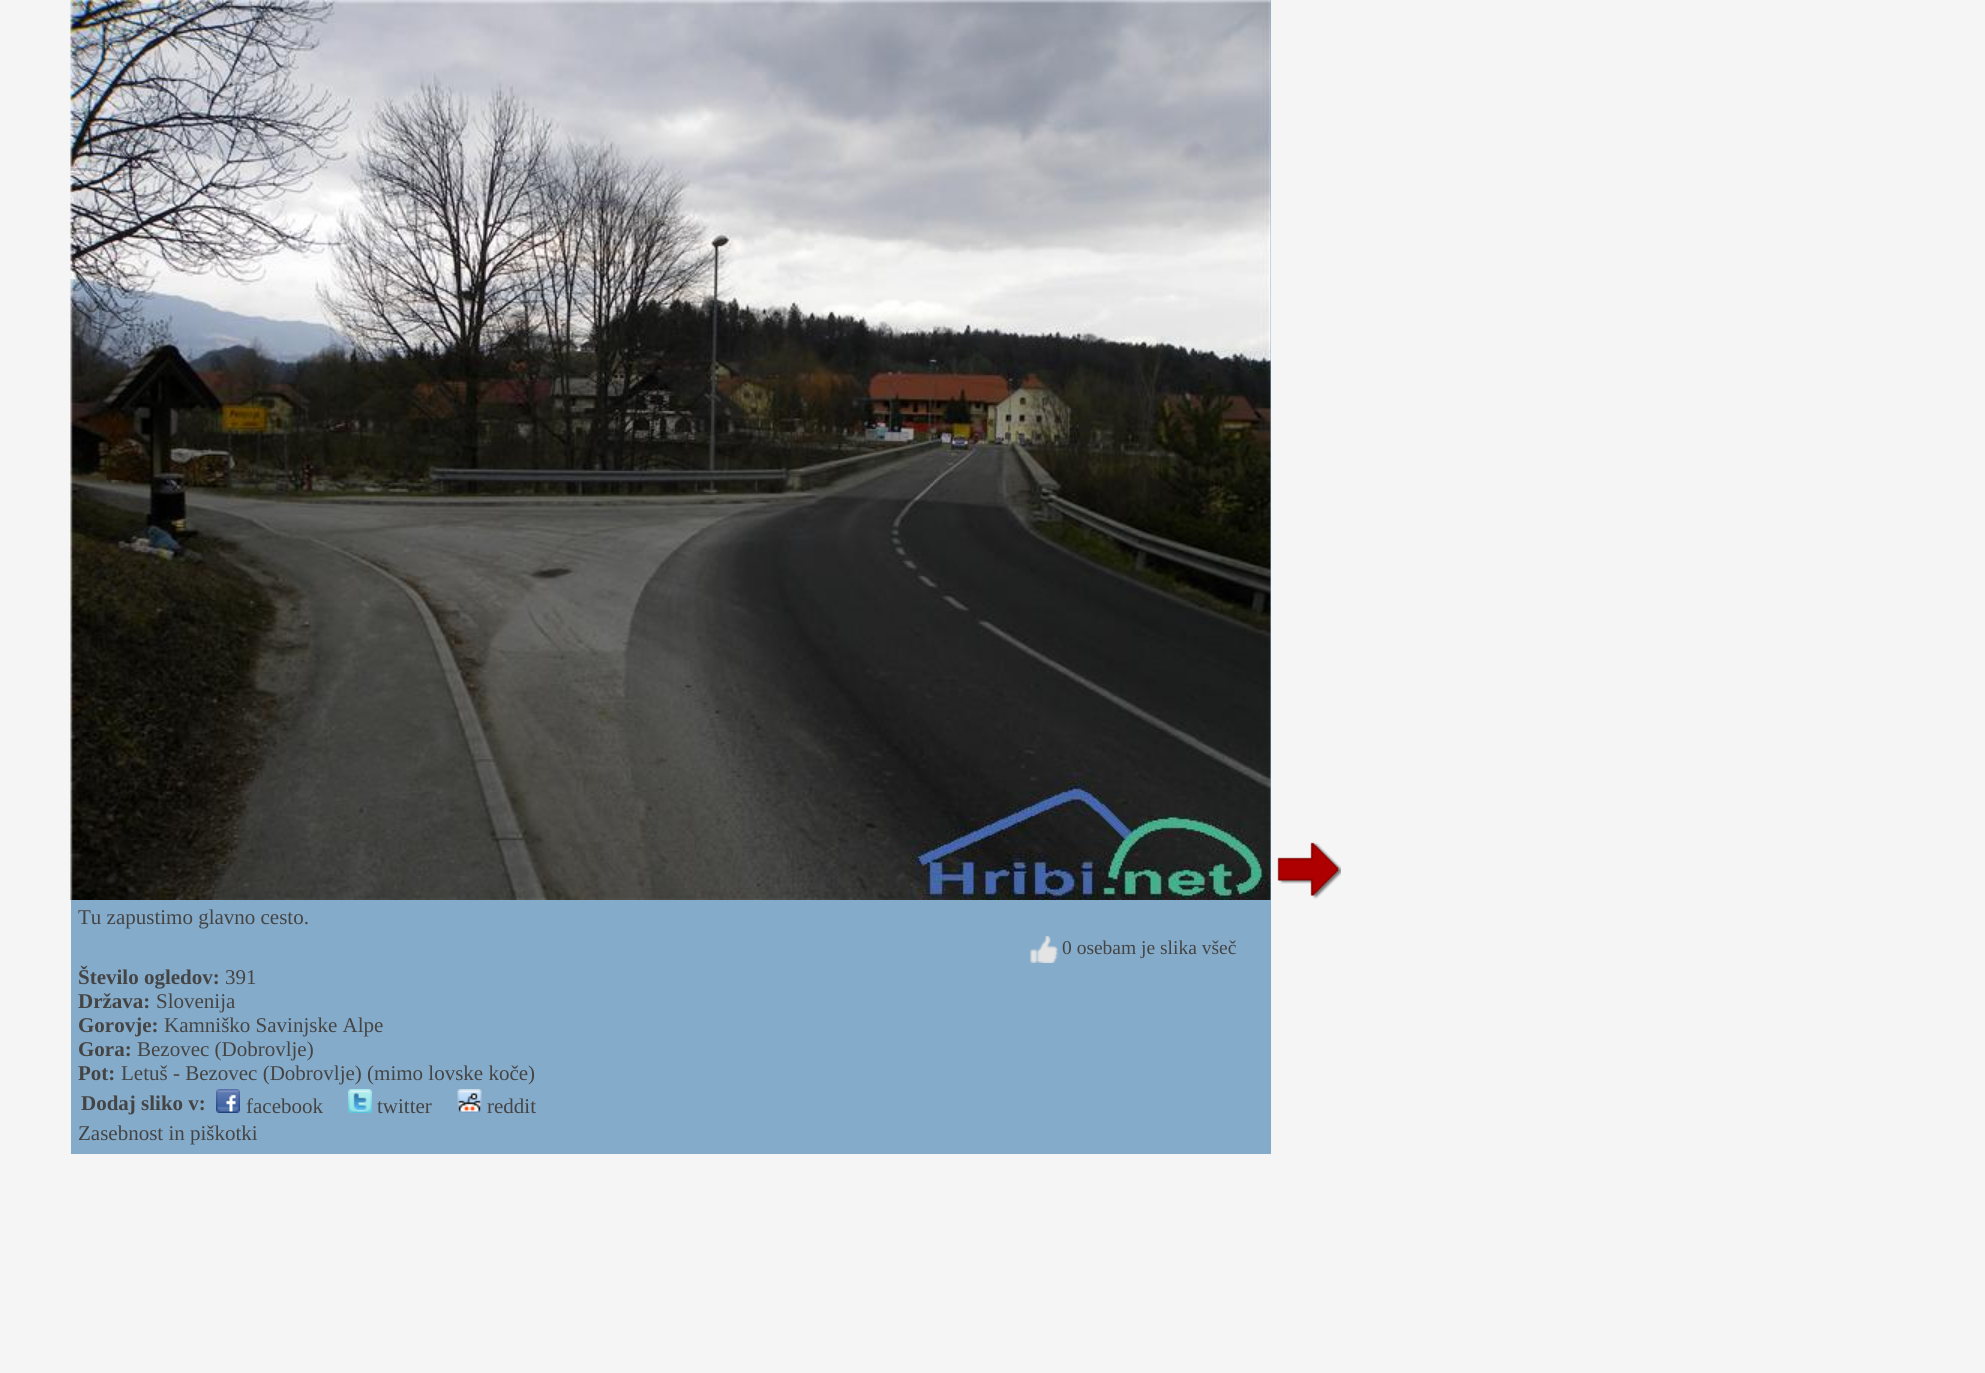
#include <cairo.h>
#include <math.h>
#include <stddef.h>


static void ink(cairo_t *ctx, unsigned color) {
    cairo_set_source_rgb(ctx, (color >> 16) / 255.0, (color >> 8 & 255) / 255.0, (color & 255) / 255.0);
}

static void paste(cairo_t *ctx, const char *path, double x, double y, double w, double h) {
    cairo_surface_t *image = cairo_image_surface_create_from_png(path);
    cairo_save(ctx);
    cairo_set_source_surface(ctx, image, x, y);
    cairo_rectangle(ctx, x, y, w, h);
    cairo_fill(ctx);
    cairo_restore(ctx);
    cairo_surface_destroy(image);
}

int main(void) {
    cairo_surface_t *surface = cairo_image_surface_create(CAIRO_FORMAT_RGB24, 1985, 1373);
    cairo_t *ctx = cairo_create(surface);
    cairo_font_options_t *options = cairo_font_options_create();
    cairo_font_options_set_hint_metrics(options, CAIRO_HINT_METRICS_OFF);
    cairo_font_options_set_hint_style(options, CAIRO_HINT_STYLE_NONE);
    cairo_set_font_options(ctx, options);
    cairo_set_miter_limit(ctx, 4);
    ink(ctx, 0xF5F5F5);
    cairo_paint(ctx);
    paste(ctx, "media/1.png", 1277, 842, 64, 57);
    ink(ctx, 0x85ABCA);
    cairo_rectangle(ctx, 71, 0, 1200, 1154);
    cairo_fill(ctx);
    paste(ctx, "media/2.png", 70, 0, 1201, 900);
    cairo_select_font_face(ctx, "Liberation Serif", CAIRO_FONT_SLANT_NORMAL, CAIRO_FONT_WEIGHT_NORMAL);
    cairo_set_font_size(ctx, 21);
    ink(ctx, 0x444444);
    cairo_move_to(ctx, 78, 924);
    cairo_show_text(ctx, "Tu zapustimo glavno cesto.");
    paste(ctx, "media/3.png", 1030, 936, 28, 27);
    cairo_set_font_size(ctx, 19.5);
    cairo_move_to(ctx, 1062, 954);
    cairo_show_text(ctx, "0 osebam je slika všeč");
    cairo_select_font_face(ctx, "Liberation Serif", CAIRO_FONT_SLANT_NORMAL, CAIRO_FONT_WEIGHT_BOLD);
    cairo_set_font_size(ctx, 21);
    cairo_move_to(ctx, 78, 984);
    cairo_show_text(ctx, "Število ogledov:");
    cairo_select_font_face(ctx, "Liberation Serif", CAIRO_FONT_SLANT_NORMAL, CAIRO_FONT_WEIGHT_NORMAL);
    cairo_move_to(ctx, 225, 984);
    cairo_show_text(ctx, "391");
    cairo_select_font_face(ctx, "Liberation Serif", CAIRO_FONT_SLANT_NORMAL, CAIRO_FONT_WEIGHT_BOLD);
    cairo_move_to(ctx, 78, 1008);
    cairo_show_text(ctx, "Država:");
    cairo_select_font_face(ctx, "Liberation Serif", CAIRO_FONT_SLANT_NORMAL, CAIRO_FONT_WEIGHT_NORMAL);
    cairo_move_to(ctx, 156, 1008);
    cairo_show_text(ctx, "Slovenija");
    cairo_select_font_face(ctx, "Liberation Serif", CAIRO_FONT_SLANT_NORMAL, CAIRO_FONT_WEIGHT_BOLD);
    cairo_move_to(ctx, 78, 1032);
    cairo_show_text(ctx, "Gorovje:");
    cairo_select_font_face(ctx, "Liberation Serif", CAIRO_FONT_SLANT_NORMAL, CAIRO_FONT_WEIGHT_NORMAL);
    cairo_move_to(ctx, 164, 1032);
    cairo_show_text(ctx, "Kamniško Savinjske Alpe");
    cairo_select_font_face(ctx, "Liberation Serif", CAIRO_FONT_SLANT_NORMAL, CAIRO_FONT_WEIGHT_BOLD);
    cairo_move_to(ctx, 78, 1056);
    cairo_show_text(ctx, "Gora:");
    cairo_select_font_face(ctx, "Liberation Serif", CAIRO_FONT_SLANT_NORMAL, CAIRO_FONT_WEIGHT_NORMAL);
    cairo_move_to(ctx, 137, 1056);
    cairo_show_text(ctx, "Bezovec (Dobrovlje)");
    cairo_select_font_face(ctx, "Liberation Serif", CAIRO_FONT_SLANT_NORMAL, CAIRO_FONT_WEIGHT_BOLD);
    cairo_move_to(ctx, 78, 1080);
    cairo_show_text(ctx, "Pot:");
    cairo_select_font_face(ctx, "Liberation Serif", CAIRO_FONT_SLANT_NORMAL, CAIRO_FONT_WEIGHT_NORMAL);
    cairo_move_to(ctx, 121, 1080);
    cairo_show_text(ctx, "Letuš - Bezovec (Dobrovlje) (mimo lovske koče)");
    cairo_select_font_face(ctx, "Liberation Serif", CAIRO_FONT_SLANT_NORMAL, CAIRO_FONT_WEIGHT_BOLD);
    cairo_move_to(ctx, 81, 1110);
    cairo_show_text(ctx, "Dodaj sliko v:");
    paste(ctx, "media/4.png", 216, 1089, 24, 24);
    cairo_select_font_face(ctx, "Liberation Serif", CAIRO_FONT_SLANT_NORMAL, CAIRO_FONT_WEIGHT_NORMAL);
    cairo_move_to(ctx, 246, 1113);
    cairo_show_text(ctx, "facebook");
    paste(ctx, "media/5.png", 348, 1089, 24, 24);
    cairo_move_to(ctx, 377, 1113);
    cairo_show_text(ctx, "twitter");
    paste(ctx, "media/6.png", 457, 1089, 25, 24);
    cairo_move_to(ctx, 487, 1113);
    cairo_show_text(ctx, "reddit");
    cairo_move_to(ctx, 78, 1140);
    cairo_show_text(ctx, "Zasebnost in piškotki");
    cairo_surface_write_to_png(surface, "image.png");
    cairo_font_options_destroy(options);
    cairo_destroy(ctx);
    cairo_surface_destroy(surface);
    return 0;
}
